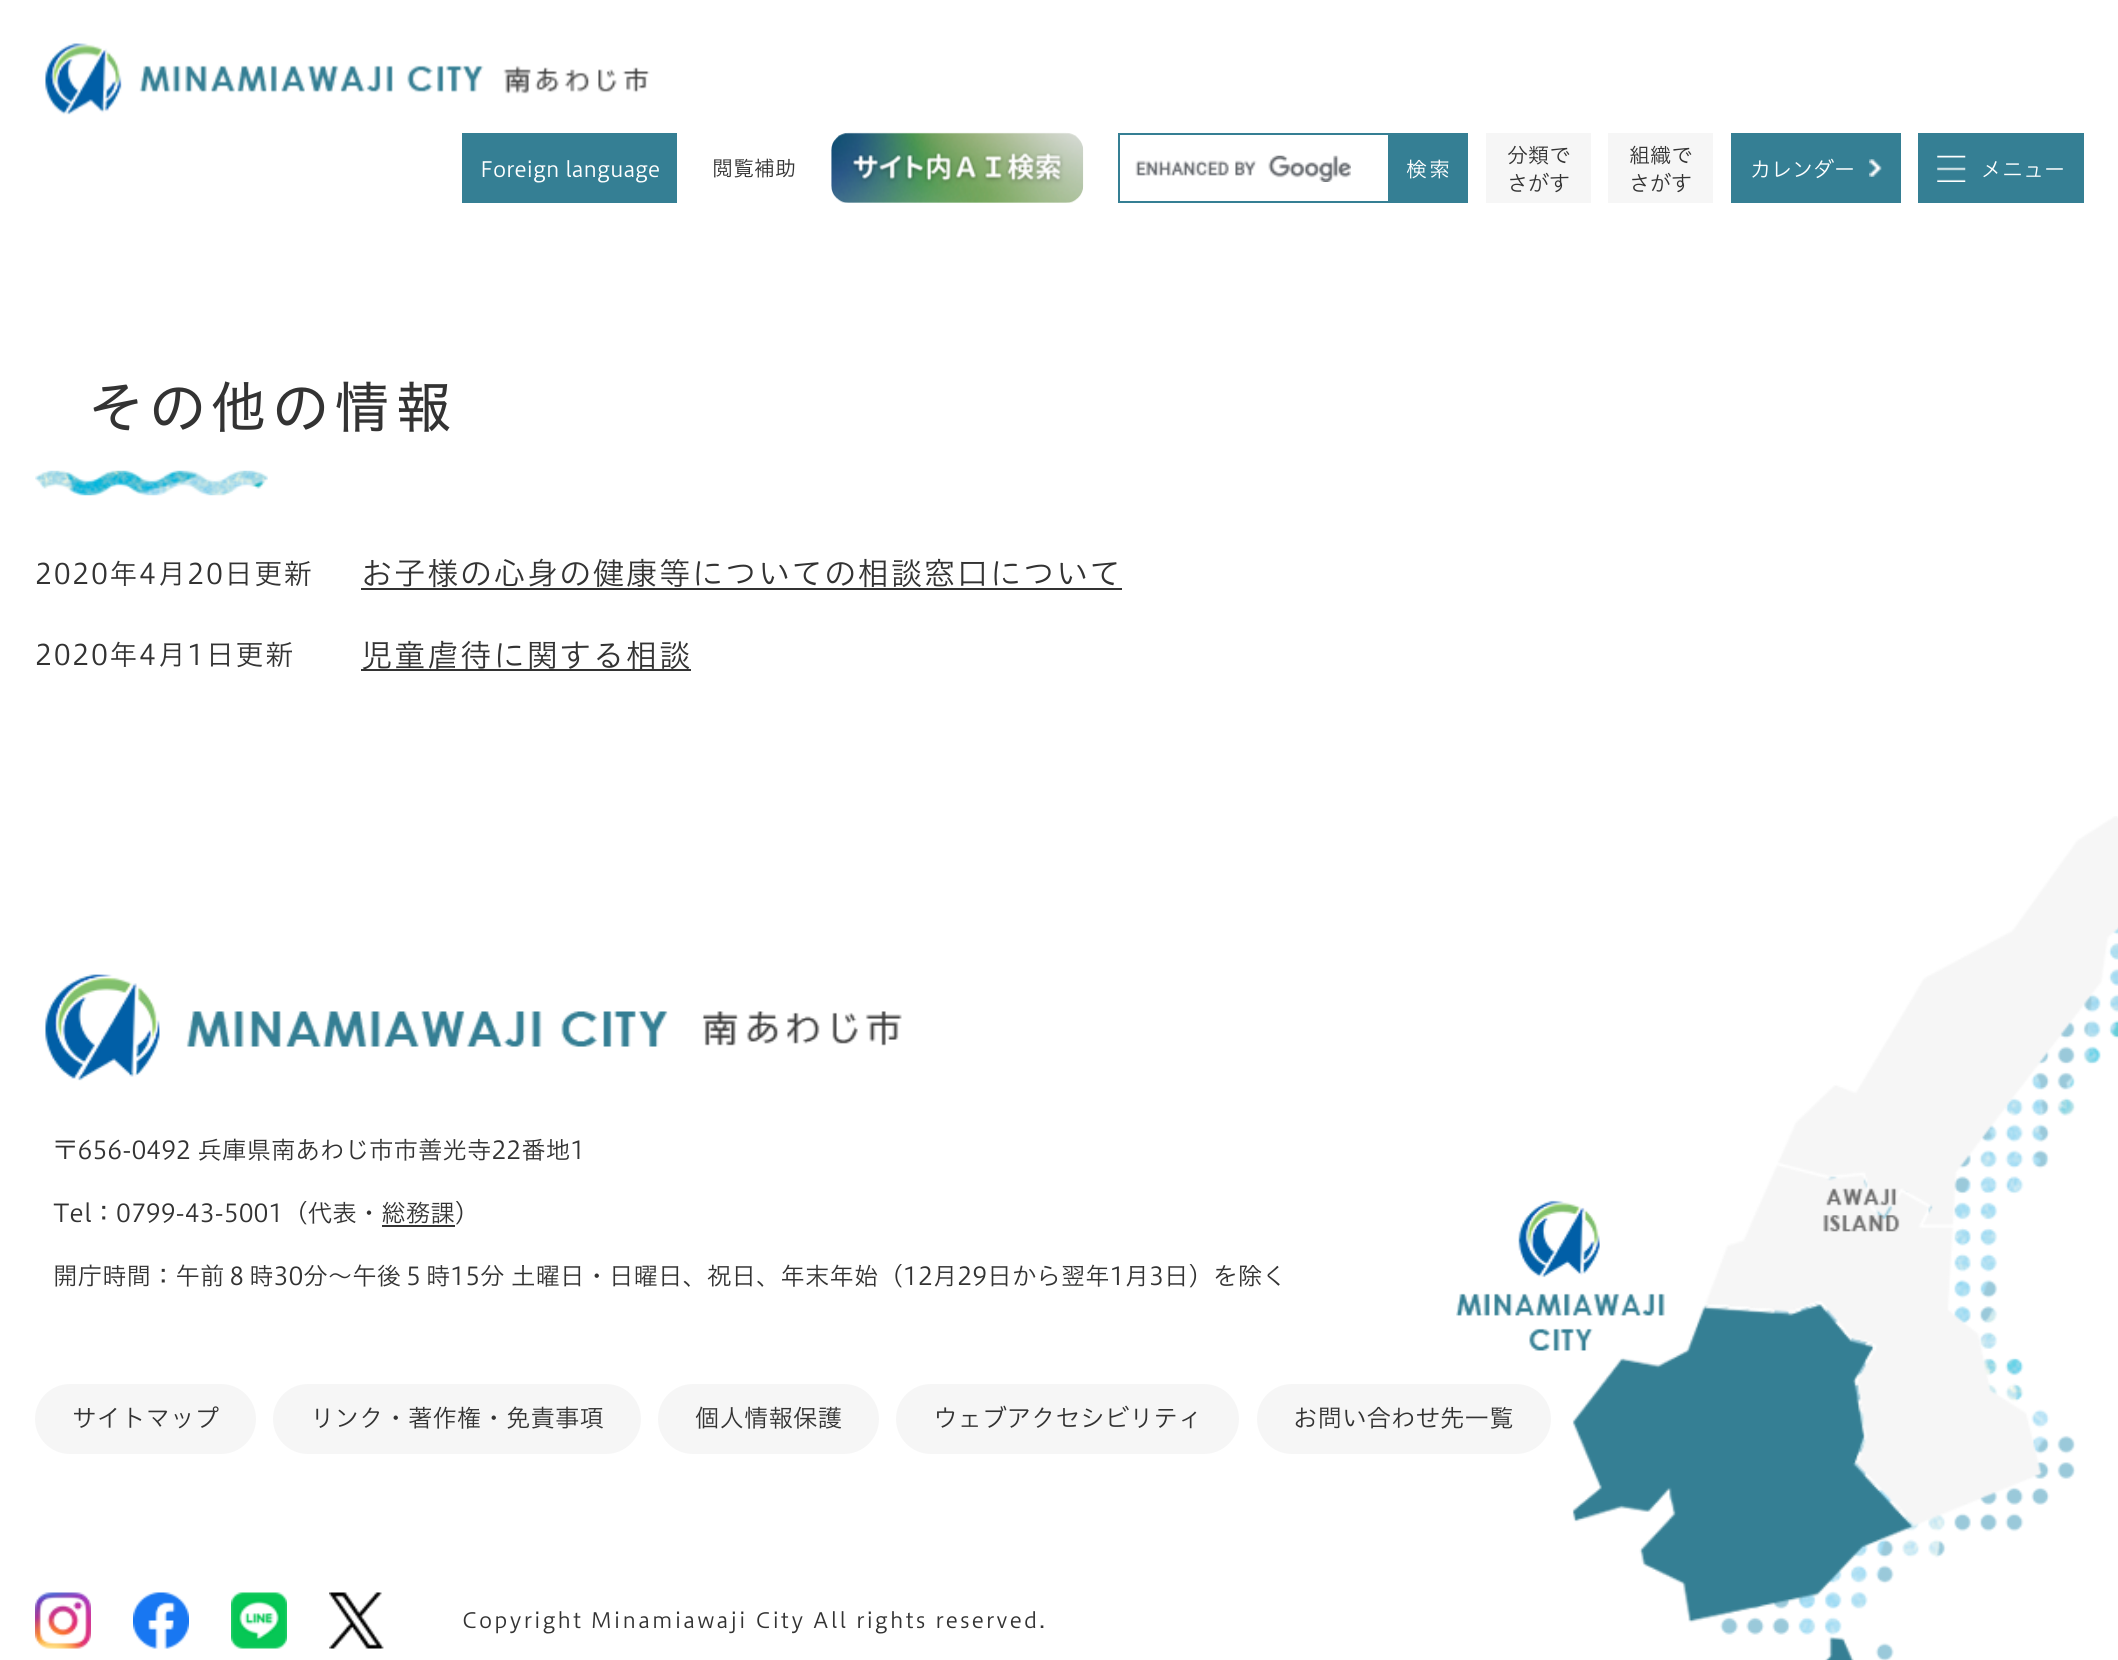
#include <cairo.h>
#include <math.h>
#include <stddef.h>


static void ink(cairo_t *ctx, unsigned color) {
    cairo_set_source_rgb(ctx, (color >> 16) / 255.0, (color >> 8 & 255) / 255.0, (color & 255) / 255.0);
}

static void write_spaced(cairo_t *ctx, double x, double y, const char *s, double letter, double word) {
    cairo_move_to(ctx, x, y);
    while (*s) {
        char ch[5] = {0};
        int n = 0;
        do ch[n++] = *s++; while ((*s & 0xC0) == 0x80);
        cairo_show_text(ctx, ch);
        cairo_rel_move_to(ctx, letter + word * (*ch == ' '), 0);
    }
}

static void round_path(cairo_t *ctx, double x, double y, double w, double h, double r) {
    cairo_new_sub_path(ctx);
    cairo_arc(ctx, x + w - r, y + h - r, r, 0, M_PI / 2);
    cairo_arc(ctx, x + r, y + h - r, r, M_PI / 2, M_PI);
    cairo_arc(ctx, x + r, y + r, r, M_PI, 1.5 * M_PI);
    cairo_arc(ctx, x + w - r, y + r, r, 1.5 * M_PI, 2 * M_PI);
    cairo_close_path(ctx);
}

static void paste(cairo_t *ctx, const char *path, double x, double y, double w, double h) {
    cairo_surface_t *image = cairo_image_surface_create_from_png(path);
    cairo_save(ctx);
    cairo_set_source_surface(ctx, image, x, y);
    cairo_rectangle(ctx, x, y, w, h);
    cairo_fill(ctx);
    cairo_restore(ctx);
    cairo_surface_destroy(image);
}

int main(void) {
    cairo_surface_t *surface = cairo_image_surface_create(CAIRO_FORMAT_RGB24, 2118, 1660);
    cairo_t *ctx = cairo_create(surface);
    cairo_font_options_t *options = cairo_font_options_create();
    cairo_font_options_set_hint_metrics(options, CAIRO_HINT_METRICS_OFF);
    cairo_font_options_set_hint_style(options, CAIRO_HINT_STYLE_NONE);
    cairo_set_font_options(ctx, options);
    cairo_set_miter_limit(ctx, 4);
    ink(ctx, 0xFFFFFF);
    cairo_paint(ctx);
    paste(ctx, "media/1.png", 45, 43, 605, 72);
    ink(ctx, 0x357F94);
    cairo_rectangle(ctx, 462, 133, 215, 70);
    cairo_fill(ctx);
    cairo_select_font_face(ctx, "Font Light", CAIRO_FONT_SLANT_NORMAL, CAIRO_FONT_WEIGHT_NORMAL);
    cairo_set_font_size(ctx, 21);
    ink(ctx, 0xFFFFFF);
    cairo_move_to(ctx, 480, 177);
    cairo_show_text(ctx, "Foreign language");
    ink(ctx, 0x333333);
    cairo_move_to(ctx, 712, 176);
    cairo_show_text(ctx, "閲覧補助");
    paste(ctx, "media/2.png", 831, 132, 253, 71);
    paste(ctx, "media/3.png", 1135, 155, 216, 27);
    cairo_rectangle(ctx, 1119, 134, 270, 68);
    ink(ctx, 0x357F94);
    cairo_stroke(ctx);
    cairo_rectangle(ctx, 1390, 133, 78, 70);
    cairo_fill(ctx);
    ink(ctx, 0xFFFFFF);
    write_spaced(ctx, 1406, 177, "検索", 2.1, 0);
    ink(ctx, 0xF6F6F6);
    cairo_rectangle(ctx, 1486, 133, 105, 70);
    cairo_fill(ctx);
    ink(ctx, 0x333333);
    cairo_move_to(ctx, 1507, 163);
    cairo_show_text(ctx, "分類で");
    cairo_move_to(ctx, 1507, 191);
    cairo_show_text(ctx, "さがす");
    ink(ctx, 0xF6F6F6);
    cairo_rectangle(ctx, 1608, 133, 105, 70);
    cairo_fill(ctx);
    ink(ctx, 0x333333);
    cairo_move_to(ctx, 1629, 163);
    cairo_show_text(ctx, "組織で");
    cairo_move_to(ctx, 1629, 191);
    cairo_show_text(ctx, "さがす");
    ink(ctx, 0x357F94);
    cairo_rectangle(ctx, 1731, 133, 170, 70);
    cairo_fill(ctx);
    paste(ctx, "media/4.png", 1869, 159, 13, 18);
    ink(ctx, 0xFFFFFF);
    cairo_move_to(ctx, 1750, 177);
    cairo_show_text(ctx, "カレンダー");
    ink(ctx, 0x357F94);
    cairo_rectangle(ctx, 1918, 133, 166, 70);
    cairo_fill(ctx);
    paste(ctx, "media/5.png", 1937, 155, 29, 27);
    ink(ctx, 0xFFFFFF);
    cairo_move_to(ctx, 1981, 177);
    cairo_show_text(ctx, "メニュー");
    paste(ctx, "media/6.png", 35, 470, 233, 26);
    cairo_select_font_face(ctx, "Font", CAIRO_FONT_SLANT_NORMAL, CAIRO_FONT_WEIGHT_NORMAL);
    cairo_set_font_size(ctx, 56);
    ink(ctx, 0x333333);
    write_spaced(ctx, 88, 428, "その他の情報", 5.5, 0);
    cairo_select_font_face(ctx, "Font Light", CAIRO_FONT_SLANT_NORMAL, CAIRO_FONT_WEIGHT_NORMAL);
    cairo_set_font_size(ctx, 28);
    write_spaced(ctx, 35, 584, "2020年4月20日更新", 1.6, 0);
    cairo_set_font_size(ctx, 31.5);
    write_spaced(ctx, 361, 585, "お子様の心身の健康等についての相談窓口について", 1.6, 0);
    cairo_rectangle(ctx, 361, 588, 761, 2);
    cairo_fill(ctx);
    cairo_set_font_size(ctx, 28);
    write_spaced(ctx, 35, 665, "2020年4月1日更新", 1.6, 0);
    cairo_rectangle(ctx, 361, 669, 330, 2);
    cairo_fill(ctx);
    cairo_set_font_size(ctx, 31.5);
    write_spaced(ctx, 361, 667, "児童虐待に関する相談", 1.6, 0);
    paste(ctx, "media/7.png", 1456, 816, 662, 844);
    paste(ctx, "media/8.png", 45, 974, 857, 107);
    cairo_set_font_size(ctx, 24.5);
    cairo_move_to(ctx, 53, 1159);
    cairo_show_text(ctx, "〒656-0492 兵庫県南あわじ市市善光寺22番地1");
    cairo_move_to(ctx, 53, 1222);
    cairo_show_text(ctx, "Tel：0799-43-5001（代表・総務課）");
    cairo_rectangle(ctx, 382, 1225, 73, 2);
    cairo_fill(ctx);
    cairo_move_to(ctx, 53, 1285);
    cairo_show_text(ctx, "開庁時間：午前８時30分～午後５時15分 土曜日・日曜日、祝日、年末年始（12月29日から翌年1月3日）を除く");
    ink(ctx, 0xF6F6F6);
    round_path(ctx, 35, 1384, 221, 70, 35);
    cairo_fill(ctx);
    ink(ctx, 0x333333);
    cairo_move_to(ctx, 72, 1427);
    cairo_show_text(ctx, "サイトマップ");
    ink(ctx, 0xF6F6F6);
    round_path(ctx, 273, 1384, 368, 70, 35);
    cairo_fill(ctx);
    ink(ctx, 0x333333);
    cairo_move_to(ctx, 310, 1427);
    cairo_show_text(ctx, "リンク・著作権・免責事項");
    ink(ctx, 0xF6F6F6);
    round_path(ctx, 658, 1384, 221, 70, 35);
    cairo_fill(ctx);
    ink(ctx, 0x333333);
    cairo_move_to(ctx, 695, 1427);
    cairo_show_text(ctx, "個人情報保護");
    ink(ctx, 0xF6F6F6);
    round_path(ctx, 896, 1384, 343, 70, 35);
    cairo_fill(ctx);
    ink(ctx, 0x333333);
    cairo_move_to(ctx, 933, 1427);
    cairo_show_text(ctx, "ウェブアクセシビリティ");
    ink(ctx, 0xF6F6F6);
    round_path(ctx, 1257, 1384, 294, 70, 35);
    cairo_fill(ctx);
    ink(ctx, 0x333333);
    cairo_move_to(ctx, 1293, 1427);
    cairo_show_text(ctx, "お問い合わせ先一覧");
    paste(ctx, "media/9.png", 35, 1592, 56, 57);
    paste(ctx, "media/10.png", 133, 1592, 56, 57);
    paste(ctx, "media/11.png", 231, 1592, 56, 57);
    paste(ctx, "media/12.png", 329, 1592, 55, 57);
    cairo_set_font_size(ctx, 21);
    write_spaced(ctx, 462, 1628, "Copyright Minamiawaji City All rights reserved.", 2.1, 0);
    cairo_surface_write_to_png(surface, "image.png");
    cairo_font_options_destroy(options);
    cairo_destroy(ctx);
    cairo_surface_destroy(surface);
    return 0;
}
